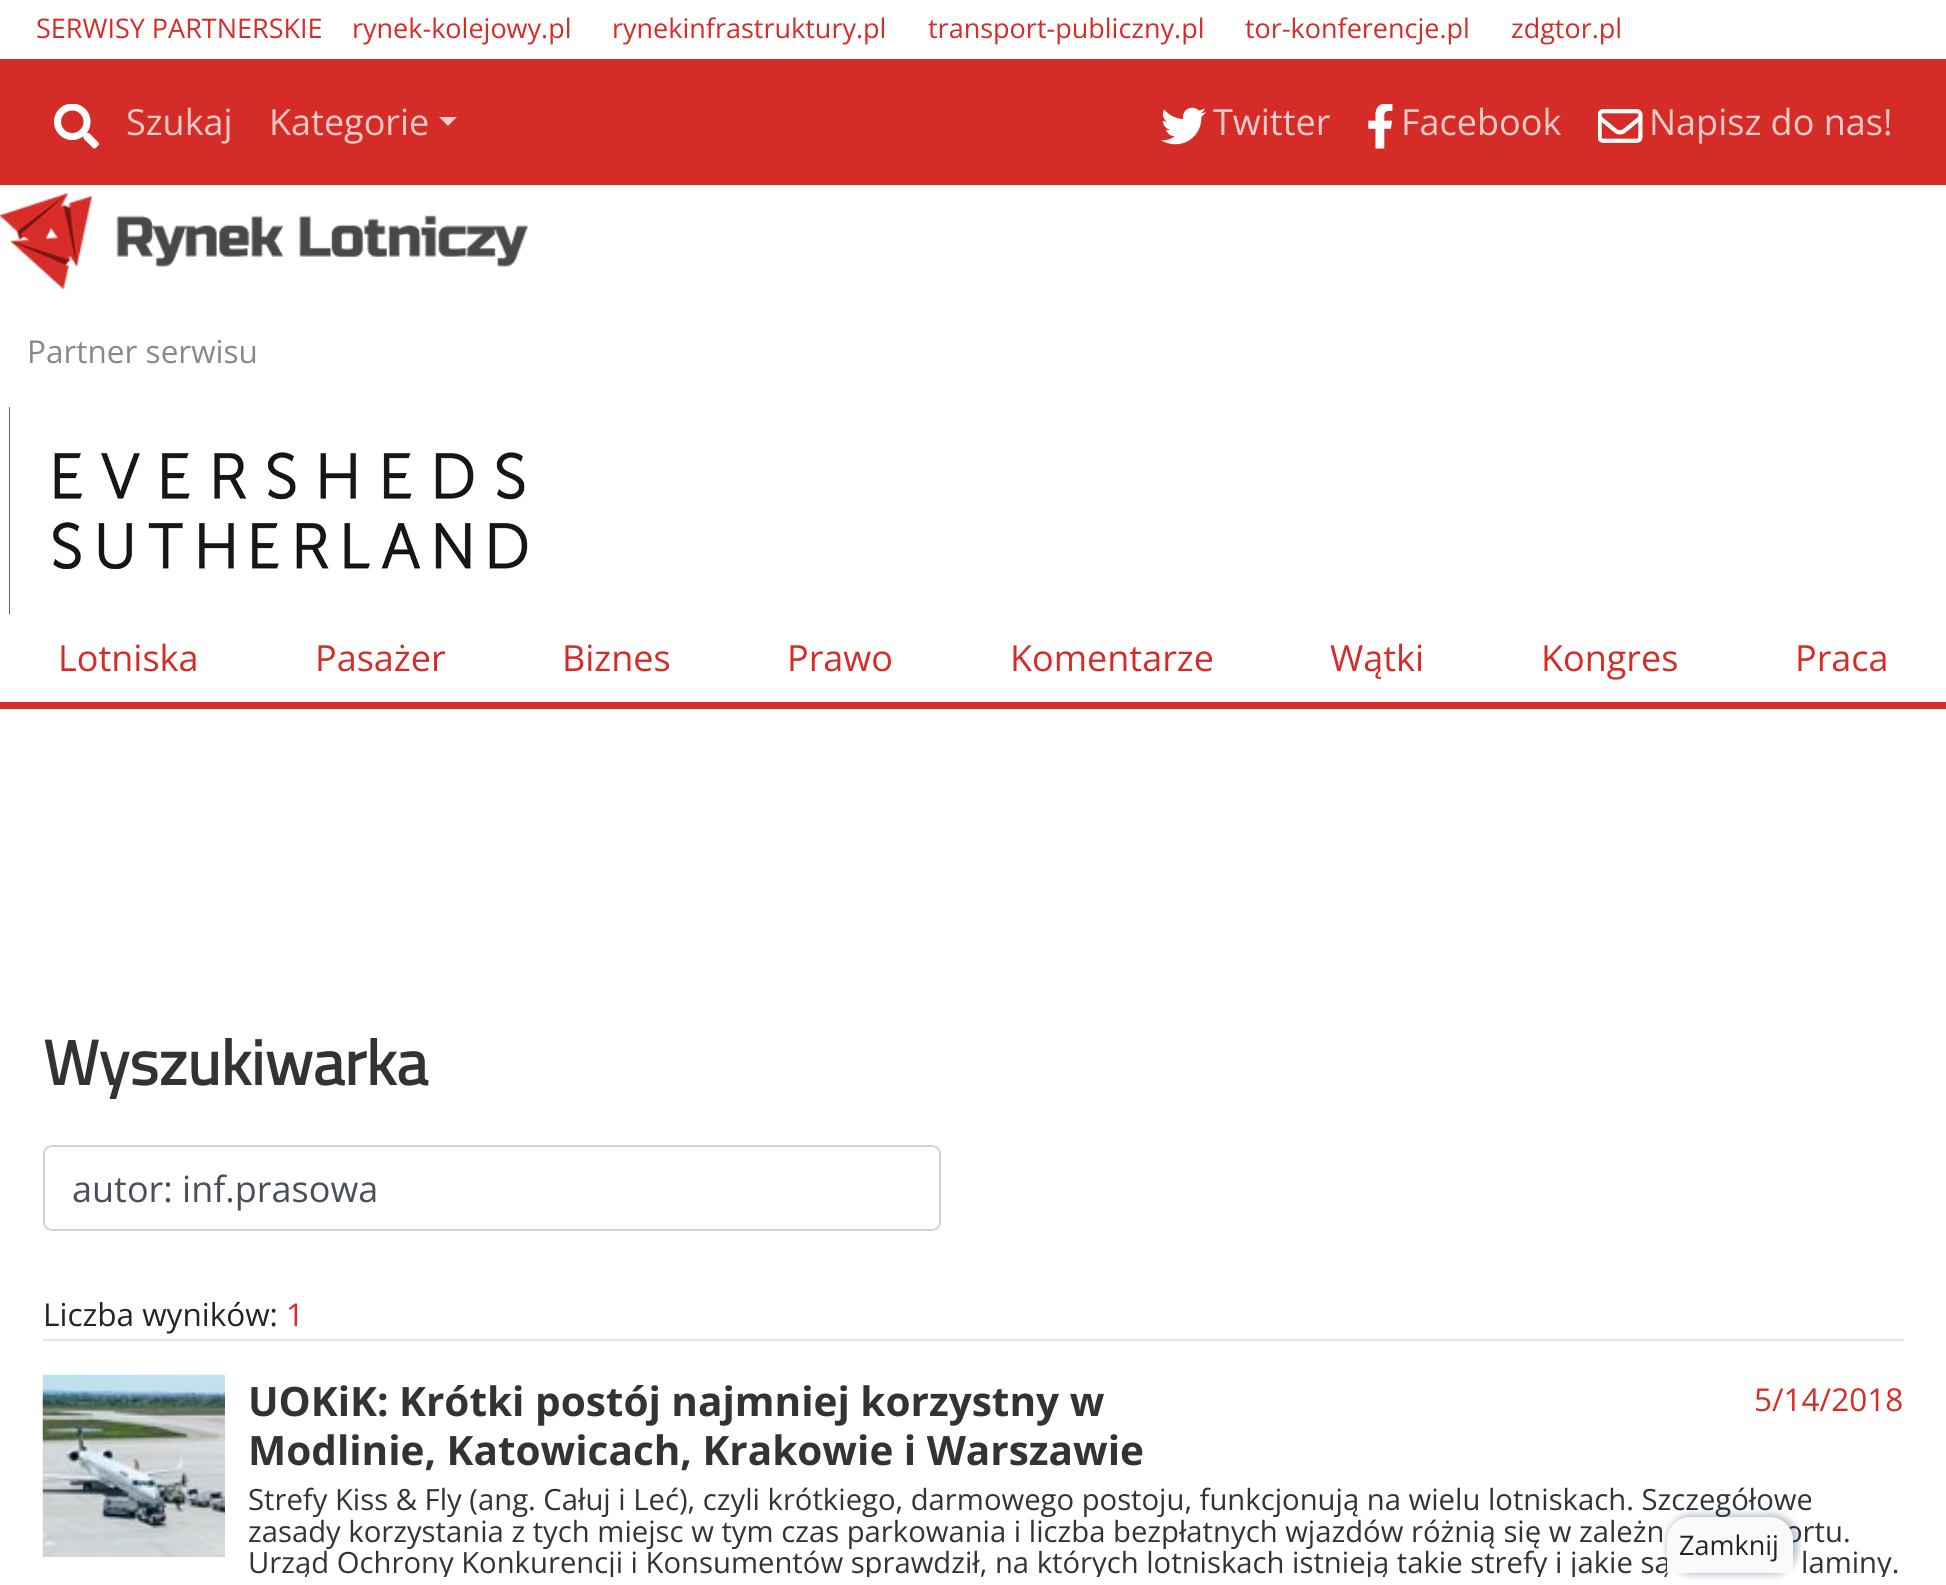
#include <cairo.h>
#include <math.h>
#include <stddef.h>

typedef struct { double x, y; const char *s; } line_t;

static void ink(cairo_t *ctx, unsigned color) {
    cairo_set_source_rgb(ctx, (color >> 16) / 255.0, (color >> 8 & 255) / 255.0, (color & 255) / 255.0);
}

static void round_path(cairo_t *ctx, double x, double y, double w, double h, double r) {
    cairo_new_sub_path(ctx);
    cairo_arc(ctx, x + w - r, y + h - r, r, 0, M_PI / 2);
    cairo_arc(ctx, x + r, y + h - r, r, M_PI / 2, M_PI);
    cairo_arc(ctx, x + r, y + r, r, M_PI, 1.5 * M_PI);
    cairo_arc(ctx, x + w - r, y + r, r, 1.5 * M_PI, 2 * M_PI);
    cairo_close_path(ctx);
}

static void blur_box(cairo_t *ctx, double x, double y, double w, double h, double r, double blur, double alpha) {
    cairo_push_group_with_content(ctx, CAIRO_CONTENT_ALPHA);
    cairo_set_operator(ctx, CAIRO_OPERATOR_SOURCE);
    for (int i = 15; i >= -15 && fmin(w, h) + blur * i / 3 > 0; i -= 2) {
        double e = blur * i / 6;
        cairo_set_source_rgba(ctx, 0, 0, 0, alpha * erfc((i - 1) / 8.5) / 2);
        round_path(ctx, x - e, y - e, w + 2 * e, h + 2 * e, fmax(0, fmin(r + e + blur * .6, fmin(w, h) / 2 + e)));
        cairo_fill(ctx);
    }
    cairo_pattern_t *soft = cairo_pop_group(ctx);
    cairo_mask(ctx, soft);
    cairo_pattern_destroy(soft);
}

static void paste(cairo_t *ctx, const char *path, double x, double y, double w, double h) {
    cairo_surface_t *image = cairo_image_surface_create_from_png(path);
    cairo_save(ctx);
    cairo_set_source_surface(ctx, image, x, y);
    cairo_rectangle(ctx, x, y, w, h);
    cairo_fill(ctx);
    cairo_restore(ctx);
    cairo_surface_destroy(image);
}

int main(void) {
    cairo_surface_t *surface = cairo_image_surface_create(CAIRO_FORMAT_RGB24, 1946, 1585);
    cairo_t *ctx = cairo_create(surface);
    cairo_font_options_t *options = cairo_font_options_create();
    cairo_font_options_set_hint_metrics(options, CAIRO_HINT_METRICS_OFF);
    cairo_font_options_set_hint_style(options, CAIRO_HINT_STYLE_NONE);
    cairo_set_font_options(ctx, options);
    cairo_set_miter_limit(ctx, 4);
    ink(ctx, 0xFFFFFF);
    cairo_paint(ctx);
    cairo_select_font_face(ctx, "Open Sans", CAIRO_FONT_SLANT_NORMAL, CAIRO_FONT_WEIGHT_NORMAL);
    cairo_set_font_size(ctx, 27);
    ink(ctx, 0xD52C27);
    {
        static const line_t items[] = {
            {36, 38, "SERWISY PARTNERSKIE"},
            {352, 38, "rynek-kolejowy.pl"},
            {612, 38, "rynekinfrastruktury.pl"},
            {928, 38, "transport-publiczny.pl"},
            {1245, 38, "tor-konferencje.pl"},
            {1511, 38, "zdgtor.pl"},
        };
        for (size_t i = 0; i < sizeof items / sizeof *items; i++) {
            cairo_move_to(ctx, items[i].x, items[i].y);
            cairo_show_text(ctx, items[i].s);
        }
    }
    cairo_rectangle(ctx, 0, 59, 1946, 126);
    cairo_fill(ctx);
    paste(ctx, "media/1.png", 54, 104, 45, 45);
    cairo_set_font_size(ctx, 36);
    ink(ctx, 0xF5CAC9);
    cairo_move_to(ctx, 126, 135);
    cairo_show_text(ctx, "Szukaj");
    cairo_move_to(ctx, 269, 135);
    cairo_show_text(ctx, "Kategorie");
    cairo_new_path(ctx);
    cairo_move_to(ctx, 439, 117);
    cairo_line_to(ctx, 457, 117);
    cairo_line_to(ctx, 448, 126);
    cairo_close_path(ctx);
    cairo_fill(ctx);
    paste(ctx, "media/2.png", 1161, 107, 45, 38);
    cairo_move_to(ctx, 1213, 135);
    cairo_show_text(ctx, "Twitter");
    paste(ctx, "media/3.png", 1368, 104, 25, 45);
    cairo_move_to(ctx, 1401, 135);
    cairo_show_text(ctx, "Facebook");
    paste(ctx, "media/4.png", 1598, 109, 45, 34);
    cairo_move_to(ctx, 1649, 135);
    cairo_show_text(ctx, "Napisz do nas!");
    paste(ctx, "media/5.png", 0, 193, 528, 97);
    cairo_set_font_size(ctx, 31.5);
    ink(ctx, 0x888888);
    cairo_move_to(ctx, 27, 363);
    cairo_show_text(ctx, "Partner serwisu");
    paste(ctx, "media/6.png", 9, 407, 519, 208);
    ink(ctx, 0xD52C27);
    cairo_rectangle(ctx, 0, 702, 1946, 7);
    cairo_fill(ctx);
    cairo_set_font_size(ctx, 36);
    {
        static const line_t items[] = {
            {58, 671, "Lotniska"},
            {315, 671, "Pasażer"},
            {562, 671, "Biznes"},
            {787, 671, "Prawo"},
            {1010, 671, "Komentarze"},
            {1330, 671, "Wątki"},
            {1541, 671, "Kongres"},
            {1795, 671, "Praca"},
        };
        for (size_t i = 0; i < sizeof items / sizeof *items; i++) {
            cairo_move_to(ctx, items[i].x, items[i].y);
            cairo_show_text(ctx, items[i].s);
        }
    }
    cairo_select_font_face(ctx, "Titillium Web", CAIRO_FONT_SLANT_NORMAL, CAIRO_FONT_WEIGHT_BOLD);
    cairo_set_font_size(ctx, 63);
    ink(ctx, 0x333333);
    cairo_move_to(ctx, 43, 1085);
    cairo_show_text(ctx, "Wyszukiwarka");
    round_path(ctx, 44, 1146, 896, 84, 8);
    ink(ctx, 0xCED4DA);
    cairo_stroke(ctx);
    cairo_select_font_face(ctx, "Open Sans", CAIRO_FONT_SLANT_NORMAL, CAIRO_FONT_WEIGHT_NORMAL);
    cairo_set_font_size(ctx, 36);
    ink(ctx, 0x495057);
    cairo_move_to(ctx, 72, 1202);
    cairo_show_text(ctx, "autor: inf.prasowa");
    cairo_set_font_size(ctx, 31.5);
    ink(ctx, 0x212529);
    cairo_move_to(ctx, 43, 1326);
    cairo_show_text(ctx, "Liczba wyników:");
    ink(ctx, 0xD52C27);
    cairo_move_to(ctx, 286, 1326);
    cairo_show_text(ctx, "1");
    ink(ctx, 0xE6E6E6);
    cairo_rectangle(ctx, 43, 1339, 1861, 2);
    cairo_fill(ctx);
    paste(ctx, "media/7.png", 42, 1374, 183, 183);
    cairo_select_font_face(ctx, "Open Sans", CAIRO_FONT_SLANT_NORMAL, CAIRO_FONT_WEIGHT_BOLD);
    cairo_set_font_size(ctx, 40.5);
    ink(ctx, 0x333333);
    cairo_move_to(ctx, 248, 1416);
    cairo_show_text(ctx, "UOKiK: Krótki postój najmniej korzystny w");
    cairo_move_to(ctx, 248, 1465);
    cairo_show_text(ctx, "Modlinie, Katowicach, Krakowie i Warszawie");
    cairo_select_font_face(ctx, "Open Sans", CAIRO_FONT_SLANT_NORMAL, CAIRO_FONT_WEIGHT_NORMAL);
    cairo_set_font_size(ctx, 31.5);
    ink(ctx, 0xD52C27);
    cairo_move_to(ctx, 1754, 1411);
    cairo_show_text(ctx, "5/14/2018");
    cairo_set_font_size(ctx, 29.25);
    ink(ctx, 0x333333);
    {
        static const line_t items[] = {
            {248, 1510, "Strefy Kiss & Fly (ang. Całuj i Leć), czyli krótkiego, darmowego postoju, funkcjonują na wielu lotniskach. Szczegółowe"},
            {248, 1542, "zasady korzystania z tych miejsc w tym czas parkowania i liczba bezpłatnych wjazdów różnią się w zależn"},
            {1785, 1542, "ortu."},
        };
        for (size_t i = 0; i < sizeof items / sizeof *items; i++) {
            cairo_move_to(ctx, items[i].x, items[i].y);
            cairo_show_text(ctx, items[i].s);
        }
    }
    cairo_save(ctx);
    cairo_rectangle(ctx, 214, 1483, 1723, 94);
    cairo_clip(ctx);
    cairo_move_to(ctx, 248, 1573);
    cairo_show_text(ctx, "Urząd Ochrony Konkurencji i Konsumentów sprawdził, na których lotniskach istnieją takie strefy i jakie są");
    cairo_move_to(ctx, 1801, 1573);
    cairo_show_text(ctx, "laminy.");
    cairo_restore(ctx);
    ink(ctx, 0x113A66);
    blur_box(ctx, 1667, 1514, 131, 61, 25, 3.5, 0.3);
    ink(ctx, 0xFAFAFA);
    cairo_new_path(ctx);
    cairo_move_to(ctx, 1690, 1517);
    cairo_line_to(ctx, 1770, 1517);
    cairo_curve_to(ctx, 1782.5, 1517, 1793, 1527.5, 1793, 1540);
    cairo_line_to(ctx, 1793, 1573);
    cairo_line_to(ctx, 1667, 1573);
    cairo_line_to(ctx, 1667, 1540);
    cairo_curve_to(ctx, 1667, 1527.5, 1677.5, 1517, 1690, 1517);
    cairo_close_path(ctx);
    cairo_fill(ctx);
    cairo_set_font_size(ctx, 27);
    ink(ctx, 0x212529);
    cairo_move_to(ctx, 1679, 1555);
    cairo_show_text(ctx, "Zamknij");
    cairo_surface_write_to_png(surface, "image.png");
    cairo_font_options_destroy(options);
    cairo_destroy(ctx);
    cairo_surface_destroy(surface);
    return 0;
}
